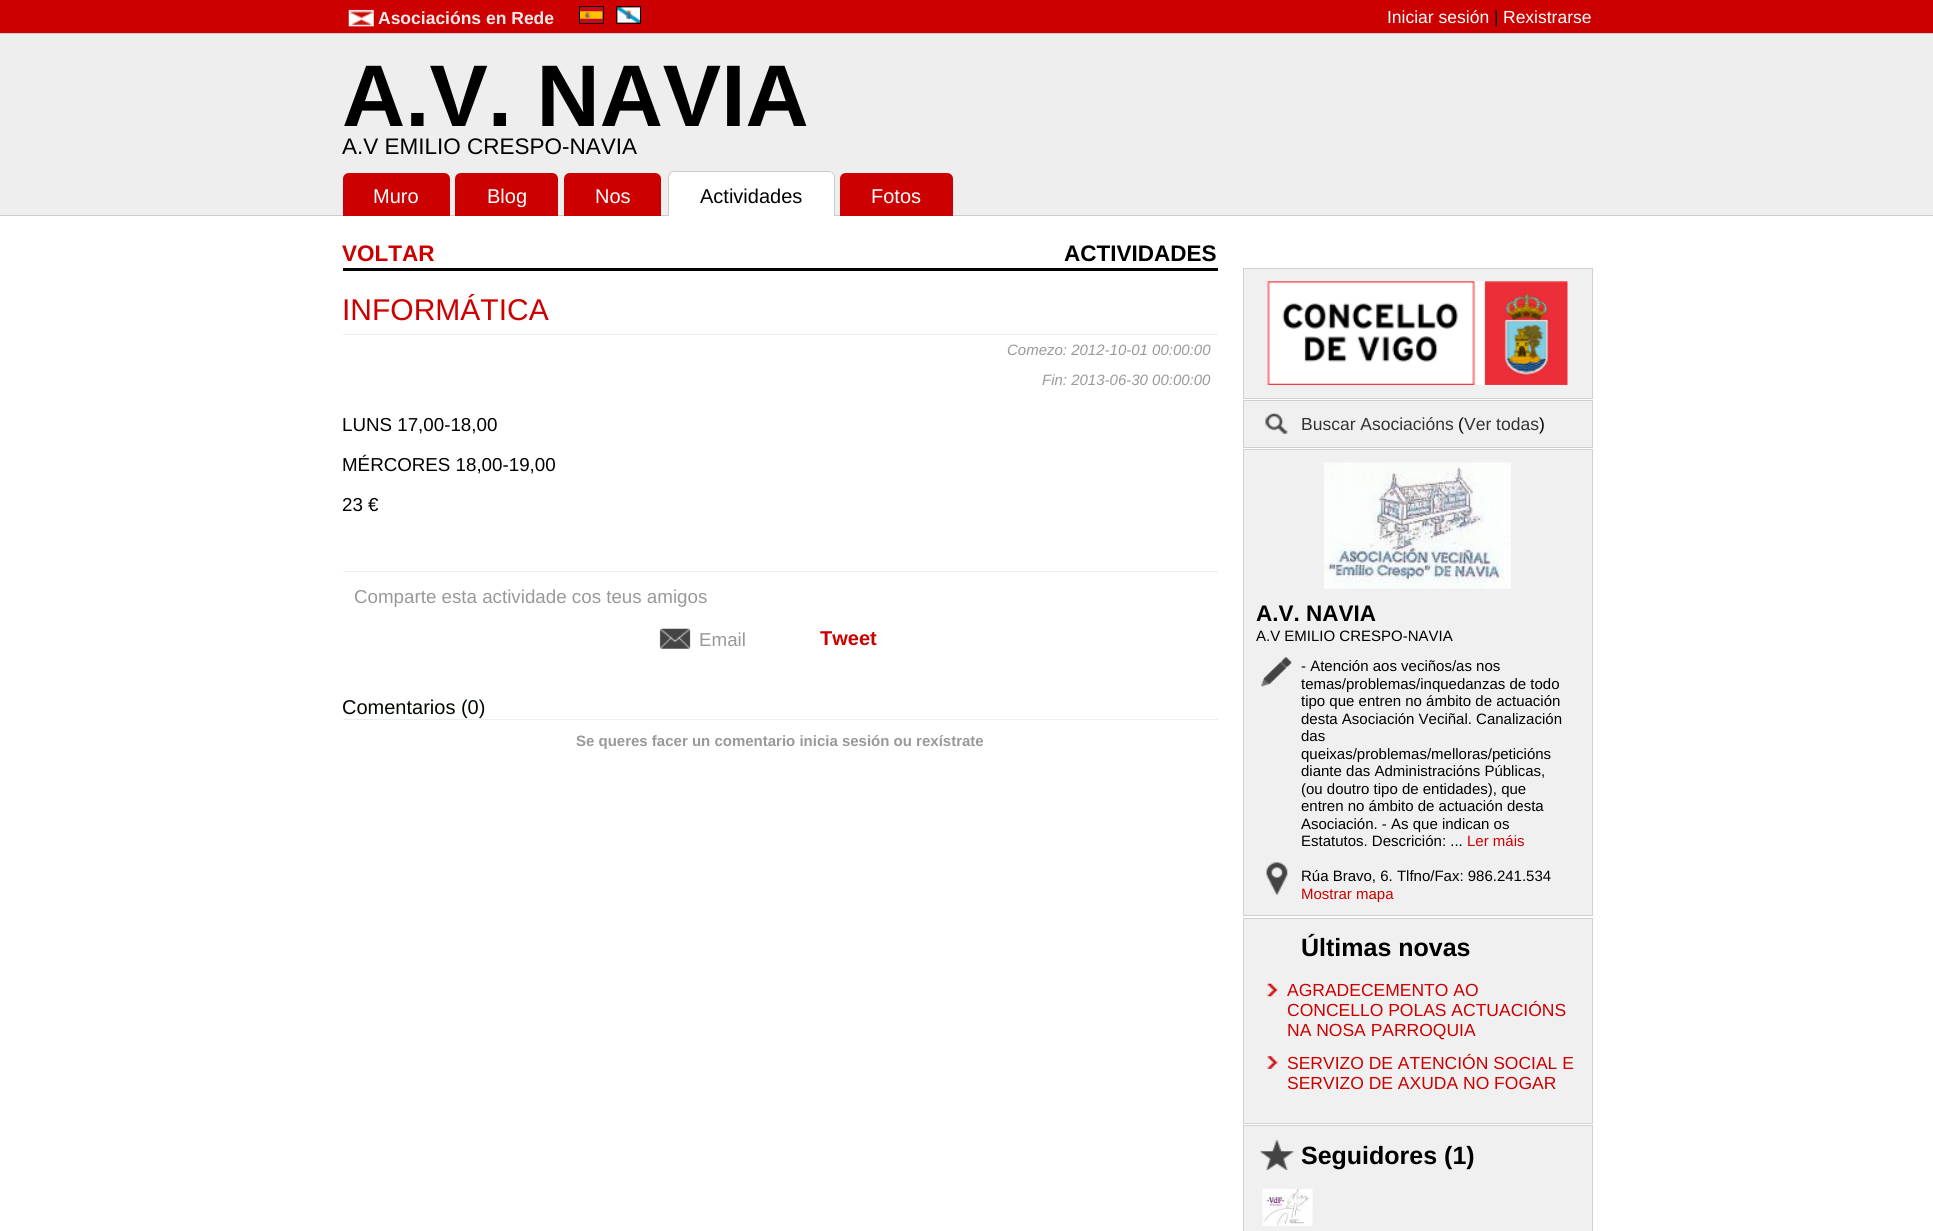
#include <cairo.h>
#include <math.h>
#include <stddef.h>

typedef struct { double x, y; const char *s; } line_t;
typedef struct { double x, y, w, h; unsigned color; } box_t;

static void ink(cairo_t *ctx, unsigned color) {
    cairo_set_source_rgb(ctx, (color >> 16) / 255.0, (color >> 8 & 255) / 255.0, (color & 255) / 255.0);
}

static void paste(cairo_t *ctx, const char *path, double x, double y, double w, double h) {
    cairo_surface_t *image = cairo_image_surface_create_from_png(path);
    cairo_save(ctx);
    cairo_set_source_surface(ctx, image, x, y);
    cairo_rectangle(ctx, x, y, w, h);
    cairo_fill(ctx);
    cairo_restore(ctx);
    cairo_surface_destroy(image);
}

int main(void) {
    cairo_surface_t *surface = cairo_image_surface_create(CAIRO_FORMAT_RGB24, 1933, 1231);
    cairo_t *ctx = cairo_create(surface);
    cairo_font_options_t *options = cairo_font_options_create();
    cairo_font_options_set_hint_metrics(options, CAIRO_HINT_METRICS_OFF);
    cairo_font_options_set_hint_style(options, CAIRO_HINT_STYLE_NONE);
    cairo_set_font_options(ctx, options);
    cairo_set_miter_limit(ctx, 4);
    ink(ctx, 0xFFFFFF);
    cairo_paint(ctx);
    {
        static const box_t items[] = {
            {0, 34, 1933, 181, 0xEEEEEE},
            {0, 0, 1933, 33, 0xCC0000},
            {0, 33, 1933, 1, 0xCCCCCC},
        };
        for (size_t i = 0; i < sizeof items / sizeof *items; i++) {
            ink(ctx, items[i].color);
            cairo_rectangle(ctx, items[i].x, items[i].y, items[i].w, items[i].h);
            cairo_fill(ctx);
        }
    }
    cairo_rectangle(ctx, 579.5, 6.5, 24, 17);
    ink(ctx, 0x000000);
    cairo_set_line_width(ctx, 1);
    cairo_stroke(ctx);
    cairo_rectangle(ctx, 616.5, 6.5, 24, 17);
    cairo_stroke(ctx);
    paste(ctx, "media/1.png", 348, 9, 26, 18);
    cairo_select_font_face(ctx, "Liberation Sans", CAIRO_FONT_SLANT_NORMAL, CAIRO_FONT_WEIGHT_BOLD);
    cairo_set_font_size(ctx, 17.5);
    ink(ctx, 0xF9E9E9);
    cairo_move_to(ctx, 378, 24);
    cairo_show_text(ctx, "Asociacións en Rede");
    paste(ctx, "media/2.png", 580, 7, 23, 16);
    paste(ctx, "media/3.png", 617, 7, 23, 16);
    cairo_select_font_face(ctx, "Liberation Sans", CAIRO_FONT_SLANT_NORMAL, CAIRO_FONT_WEIGHT_NORMAL);
    ink(ctx, 0xFFFFFF);
    cairo_move_to(ctx, 1387, 23);
    cairo_show_text(ctx, "Iniciar sesión");
    ink(ctx, 0x000000);
    cairo_move_to(ctx, 1494, 23);
    cairo_show_text(ctx, "|");
    ink(ctx, 0xFFFFFF);
    cairo_move_to(ctx, 1503, 23);
    cairo_show_text(ctx, "Rexistrarse");
    cairo_select_font_face(ctx, "Liberation Sans", CAIRO_FONT_SLANT_NORMAL, CAIRO_FONT_WEIGHT_BOLD);
    cairo_set_font_size(ctx, 87.5);
    ink(ctx, 0x000000);
    cairo_move_to(ctx, 342, 126);
    cairo_show_text(ctx, "A.V. NAVIA");
    cairo_select_font_face(ctx, "Liberation Sans", CAIRO_FONT_SLANT_NORMAL, CAIRO_FONT_WEIGHT_NORMAL);
    cairo_set_font_size(ctx, 22.5);
    cairo_move_to(ctx, 342, 154);
    cairo_show_text(ctx, "A.V EMILIO CRESPO-NAVIA");
    ink(ctx, 0xCCCCCC);
    cairo_rectangle(ctx, 0, 215, 1933, 1);
    cairo_fill(ctx);
    ink(ctx, 0xCC0000);
    cairo_new_path(ctx);
    cairo_move_to(ctx, 349, 173);
    cairo_line_to(ctx, 444, 173);
    cairo_curve_to(ctx, 447.5, 173, 450, 175.5, 450, 179);
    cairo_line_to(ctx, 450, 216);
    cairo_line_to(ctx, 343, 216);
    cairo_line_to(ctx, 343, 179);
    cairo_curve_to(ctx, 343, 175.5, 345.5, 173, 349, 173);
    cairo_close_path(ctx);
    cairo_fill(ctx);
    cairo_set_font_size(ctx, 20);
    ink(ctx, 0xFFFFFF);
    cairo_move_to(ctx, 373, 203);
    cairo_show_text(ctx, "Muro");
    ink(ctx, 0xCC0000);
    cairo_new_path(ctx);
    cairo_move_to(ctx, 461, 173);
    cairo_line_to(ctx, 552, 173);
    cairo_curve_to(ctx, 555.5, 173, 558, 175.5, 558, 179);
    cairo_line_to(ctx, 558, 216);
    cairo_line_to(ctx, 455, 216);
    cairo_line_to(ctx, 455, 179);
    cairo_curve_to(ctx, 455, 175.5, 457.5, 173, 461, 173);
    cairo_close_path(ctx);
    cairo_fill(ctx);
    ink(ctx, 0xFFFFFF);
    cairo_move_to(ctx, 487, 203);
    cairo_show_text(ctx, "Blog");
    ink(ctx, 0xCC0000);
    cairo_new_path(ctx);
    cairo_move_to(ctx, 570, 173);
    cairo_line_to(ctx, 655, 173);
    cairo_curve_to(ctx, 658.5, 173, 661, 175.5, 661, 179);
    cairo_line_to(ctx, 661, 216);
    cairo_line_to(ctx, 564, 216);
    cairo_line_to(ctx, 564, 179);
    cairo_curve_to(ctx, 564, 175.5, 566.5, 173, 570, 173);
    cairo_close_path(ctx);
    cairo_fill(ctx);
    ink(ctx, 0xFFFFFF);
    cairo_move_to(ctx, 595, 203);
    cairo_show_text(ctx, "Nos");
    cairo_new_path(ctx);
    cairo_move_to(ctx, 674, 171);
    cairo_line_to(ctx, 829, 171);
    cairo_curve_to(ctx, 832.5, 171, 835, 173.5, 835, 177);
    cairo_line_to(ctx, 835, 216);
    cairo_line_to(ctx, 668, 216);
    cairo_line_to(ctx, 668, 177);
    cairo_curve_to(ctx, 668, 173.5, 670.5, 171, 674, 171);
    cairo_close_path(ctx);
    cairo_fill(ctx);
    ink(ctx, 0xCCCCCC);
    cairo_set_fill_rule(ctx, CAIRO_FILL_RULE_EVEN_ODD);
    cairo_new_path(ctx);
    cairo_move_to(ctx, 674, 171);
    cairo_line_to(ctx, 829, 171);
    cairo_curve_to(ctx, 832, 171, 835, 174, 835, 178);
    cairo_line_to(ctx, 835, 216);
    cairo_line_to(ctx, 668, 216);
    cairo_line_to(ctx, 668, 178);
    cairo_curve_to(ctx, 668, 174, 670, 171, 674, 171);
    cairo_close_path(ctx);
    cairo_move_to(ctx, 674, 172);
    cairo_line_to(ctx, 829, 172);
    cairo_curve_to(ctx, 832, 172, 834, 175, 834, 178);
    cairo_line_to(ctx, 834, 216);
    cairo_line_to(ctx, 669, 216);
    cairo_line_to(ctx, 669, 178);
    cairo_curve_to(ctx, 669, 175, 671, 172, 674, 172);
    cairo_close_path(ctx);
    cairo_fill(ctx);
    ink(ctx, 0x000000);
    cairo_move_to(ctx, 700, 203);
    cairo_show_text(ctx, "Actividades");
    ink(ctx, 0xCC0000);
    cairo_new_path(ctx);
    cairo_move_to(ctx, 846, 173);
    cairo_line_to(ctx, 947, 173);
    cairo_curve_to(ctx, 950.5, 173, 953, 175.5, 953, 179);
    cairo_line_to(ctx, 953, 216);
    cairo_line_to(ctx, 840, 216);
    cairo_line_to(ctx, 840, 179);
    cairo_curve_to(ctx, 840, 175.5, 842.5, 173, 846, 173);
    cairo_close_path(ctx);
    cairo_fill(ctx);
    ink(ctx, 0xFFFFFF);
    cairo_move_to(ctx, 871, 203);
    cairo_show_text(ctx, "Fotos");
    ink(ctx, 0x000000);
    cairo_rectangle(ctx, 343, 268, 875, 3);
    cairo_fill(ctx);
    cairo_select_font_face(ctx, "Liberation Sans", CAIRO_FONT_SLANT_NORMAL, CAIRO_FONT_WEIGHT_BOLD);
    cairo_set_font_size(ctx, 22.5);
    ink(ctx, 0xCC0000);
    cairo_move_to(ctx, 342, 261);
    cairo_show_text(ctx, "VOLTAR");
    ink(ctx, 0x000000);
    cairo_move_to(ctx, 1064, 261);
    cairo_show_text(ctx, "ACTIVIDADES");
    ink(ctx, 0xEEEEEE);
    cairo_rectangle(ctx, 343, 334, 875, 1);
    cairo_fill(ctx);
    cairo_select_font_face(ctx, "Liberation Sans", CAIRO_FONT_SLANT_NORMAL, CAIRO_FONT_WEIGHT_NORMAL);
    cairo_set_font_size(ctx, 30);
    ink(ctx, 0xCC0000);
    cairo_move_to(ctx, 342, 320);
    cairo_show_text(ctx, "INFORMÁTICA");
    cairo_select_font_face(ctx, "Liberation Sans", CAIRO_FONT_SLANT_ITALIC, CAIRO_FONT_WEIGHT_NORMAL);
    cairo_set_font_size(ctx, 15);
    ink(ctx, 0x999999);
    cairo_move_to(ctx, 1007, 355);
    cairo_show_text(ctx, "Comezo: 2012-10-01 00:00:00");
    cairo_move_to(ctx, 1042, 385);
    cairo_show_text(ctx, "Fin: 2013-06-30 00:00:00");
    cairo_select_font_face(ctx, "Liberation Sans", CAIRO_FONT_SLANT_NORMAL, CAIRO_FONT_WEIGHT_NORMAL);
    cairo_set_font_size(ctx, 18.75);
    ink(ctx, 0x000000);
    {
        static const line_t items[] = {
            {342, 431, "LUNS 17,00-18,00"},
            {342, 471, "MÉRCORES 18,00-19,00"},
            {342, 511, "23 €"},
        };
        for (size_t i = 0; i < sizeof items / sizeof *items; i++) {
            cairo_move_to(ctx, items[i].x, items[i].y);
            cairo_show_text(ctx, items[i].s);
        }
    }
    ink(ctx, 0xEEEEEE);
    cairo_rectangle(ctx, 343, 571, 875, 1);
    cairo_fill(ctx);
    ink(ctx, 0x999999);
    cairo_move_to(ctx, 354, 603);
    cairo_show_text(ctx, "Comparte esta actividade cos teus amigos");
    paste(ctx, "media/4.png", 659, 628, 32, 21);
    cairo_move_to(ctx, 699, 646);
    cairo_show_text(ctx, "Email");
    cairo_select_font_face(ctx, "Liberation Sans", CAIRO_FONT_SLANT_NORMAL, CAIRO_FONT_WEIGHT_BOLD);
    cairo_set_font_size(ctx, 20);
    ink(ctx, 0xCC0000);
    cairo_move_to(ctx, 820, 645);
    cairo_show_text(ctx, "Tweet");
    ink(ctx, 0xEEEEEE);
    cairo_rectangle(ctx, 343, 719, 875, 1);
    cairo_fill(ctx);
    cairo_select_font_face(ctx, "Liberation Sans", CAIRO_FONT_SLANT_NORMAL, CAIRO_FONT_WEIGHT_NORMAL);
    ink(ctx, 0x000900);
    cairo_move_to(ctx, 342, 714);
    cairo_show_text(ctx, "Comentarios (0)");
    cairo_select_font_face(ctx, "Liberation Sans", CAIRO_FONT_SLANT_NORMAL, CAIRO_FONT_WEIGHT_BOLD);
    cairo_set_font_size(ctx, 15);
    ink(ctx, 0x999999);
    cairo_move_to(ctx, 576, 746);
    cairo_show_text(ctx, "Se queres facer un comentario inicia sesión ou rexístrate");
    ink(ctx, 0xF0F0F0);
    cairo_rectangle(ctx, 1243.5, 268.5, 349, 130);
    cairo_fill_preserve(ctx);
    ink(ctx, 0xD0D0D0);
    cairo_stroke(ctx);
    paste(ctx, "media/5.png", 1267, 281, 301, 104);
    ink(ctx, 0xF0F0F0);
    cairo_rectangle(ctx, 1243.5, 400.5, 349, 47);
    cairo_fill_preserve(ctx);
    ink(ctx, 0xD0D0D0);
    cairo_stroke(ctx);
    paste(ctx, "media/6.png", 1265, 413, 23, 21);
    cairo_select_font_face(ctx, "Liberation Sans", CAIRO_FONT_SLANT_NORMAL, CAIRO_FONT_WEIGHT_NORMAL);
    cairo_set_font_size(ctx, 17.5);
    ink(ctx, 0x333333);
    cairo_move_to(ctx, 1301, 430);
    cairo_show_text(ctx, "Buscar Asociacións");
    ink(ctx, 0x000000);
    cairo_move_to(ctx, 1458, 430);
    cairo_show_text(ctx, "(");
    ink(ctx, 0x333333);
    cairo_move_to(ctx, 1464, 430);
    cairo_show_text(ctx, "Ver todas");
    ink(ctx, 0x000000);
    cairo_move_to(ctx, 1539, 430);
    cairo_show_text(ctx, ")");
    ink(ctx, 0xF0F0F0);
    cairo_rectangle(ctx, 1243.5, 449.5, 349, 466);
    cairo_fill_preserve(ctx);
    ink(ctx, 0xD0D0D0);
    cairo_stroke(ctx);
    paste(ctx, "media/7.png", 1324, 462, 187, 127);
    cairo_select_font_face(ctx, "Liberation Sans", CAIRO_FONT_SLANT_NORMAL, CAIRO_FONT_WEIGHT_BOLD);
    cairo_set_font_size(ctx, 22.5);
    ink(ctx, 0x000000);
    cairo_move_to(ctx, 1256, 621);
    cairo_show_text(ctx, "A.V. NAVIA");
    cairo_select_font_face(ctx, "Liberation Sans", CAIRO_FONT_SLANT_NORMAL, CAIRO_FONT_WEIGHT_NORMAL);
    cairo_set_font_size(ctx, 15);
    cairo_move_to(ctx, 1256, 641);
    cairo_show_text(ctx, "A.V EMILIO CRESPO-NAVIA");
    paste(ctx, "media/8.png", 1261, 657, 31, 30);
    {
        static const line_t items[] = {
            {1301, 671, "- Atención aos veciños/as nos"},
            {1301, 689, "temas/problemas/inquedanzas de todo"},
            {1301, 706, "tipo que entren no ámbito de actuación"},
            {1301, 724, "desta Asociación Veciñal. Canalización"},
            {1301, 741, "das"},
            {1301, 759, "queixas/problemas/melloras/peticións"},
            {1301, 776, "diante das Administracións Públicas,"},
            {1301, 794, "(ou doutro tipo de entidades), que"},
            {1301, 811, "entren no ámbito de actuación desta"},
            {1301, 829, "Asociación. - As que indican os"},
            {1301, 846, "Estatutos. Descrición: ..."},
        };
        for (size_t i = 0; i < sizeof items / sizeof *items; i++) {
            cairo_move_to(ctx, items[i].x, items[i].y);
            cairo_show_text(ctx, items[i].s);
        }
    }
    ink(ctx, 0xCC0000);
    cairo_move_to(ctx, 1467, 846);
    cairo_show_text(ctx, "Ler máis");
    paste(ctx, "media/9.png", 1266, 862, 22, 33);
    ink(ctx, 0x000000);
    cairo_move_to(ctx, 1301, 881);
    cairo_show_text(ctx, "Rúa Bravo, 6. Tlfno/Fax: 986.241.534");
    ink(ctx, 0xCC0000);
    cairo_move_to(ctx, 1301, 899);
    cairo_show_text(ctx, "Mostrar mapa");
    ink(ctx, 0xF0F0F0);
    cairo_rectangle(ctx, 1243.5, 918.5, 349, 205);
    cairo_fill_preserve(ctx);
    ink(ctx, 0xD0D0D0);
    cairo_stroke(ctx);
    cairo_select_font_face(ctx, "Liberation Sans", CAIRO_FONT_SLANT_NORMAL, CAIRO_FONT_WEIGHT_BOLD);
    cairo_set_font_size(ctx, 25);
    ink(ctx, 0x000000);
    cairo_move_to(ctx, 1301, 956);
    cairo_show_text(ctx, "Últimas novas");
    paste(ctx, "media/10.png", 1267, 983, 11, 14);
    cairo_select_font_face(ctx, "Liberation Sans", CAIRO_FONT_SLANT_NORMAL, CAIRO_FONT_WEIGHT_NORMAL);
    cairo_set_font_size(ctx, 17.5);
    ink(ctx, 0xCC0000);
    {
        static const line_t items[] = {
            {1287, 996, "AGRADECEMENTO AO"},
            {1287, 1016, "CONCELLO POLAS ACTUACIÓNS"},
            {1287, 1036, "NA NOSA PARROQUIA"},
        };
        for (size_t i = 0; i < sizeof items / sizeof *items; i++) {
            cairo_move_to(ctx, items[i].x, items[i].y);
            cairo_show_text(ctx, items[i].s);
        }
    }
    paste(ctx, "media/11.png", 1267, 1056, 11, 13);
    cairo_move_to(ctx, 1287, 1069);
    cairo_show_text(ctx, "SERVIZO DE ATENCIÓN SOCIAL E");
    cairo_move_to(ctx, 1287, 1089);
    cairo_show_text(ctx, "SERVIZO DE AXUDA NO FOGAR");
    ink(ctx, 0xF0F0F0);
    cairo_rectangle(ctx, 1243.5, 1125.5, 349, 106);
    cairo_fill_preserve(ctx);
    ink(ctx, 0xD0D0D0);
    cairo_stroke(ctx);
    paste(ctx, "media/12.png", 1260, 1139, 34, 31);
    cairo_select_font_face(ctx, "Liberation Sans", CAIRO_FONT_SLANT_NORMAL, CAIRO_FONT_WEIGHT_BOLD);
    cairo_set_font_size(ctx, 25);
    ink(ctx, 0x000000);
    cairo_move_to(ctx, 1301, 1164);
    cairo_show_text(ctx, "Seguidores (1)");
    paste(ctx, "media/13.png", 1262, 1189, 51, 37);
    cairo_surface_write_to_png(surface, "image.png");
    cairo_font_options_destroy(options);
    cairo_destroy(ctx);
    cairo_surface_destroy(surface);
    return 0;
}
